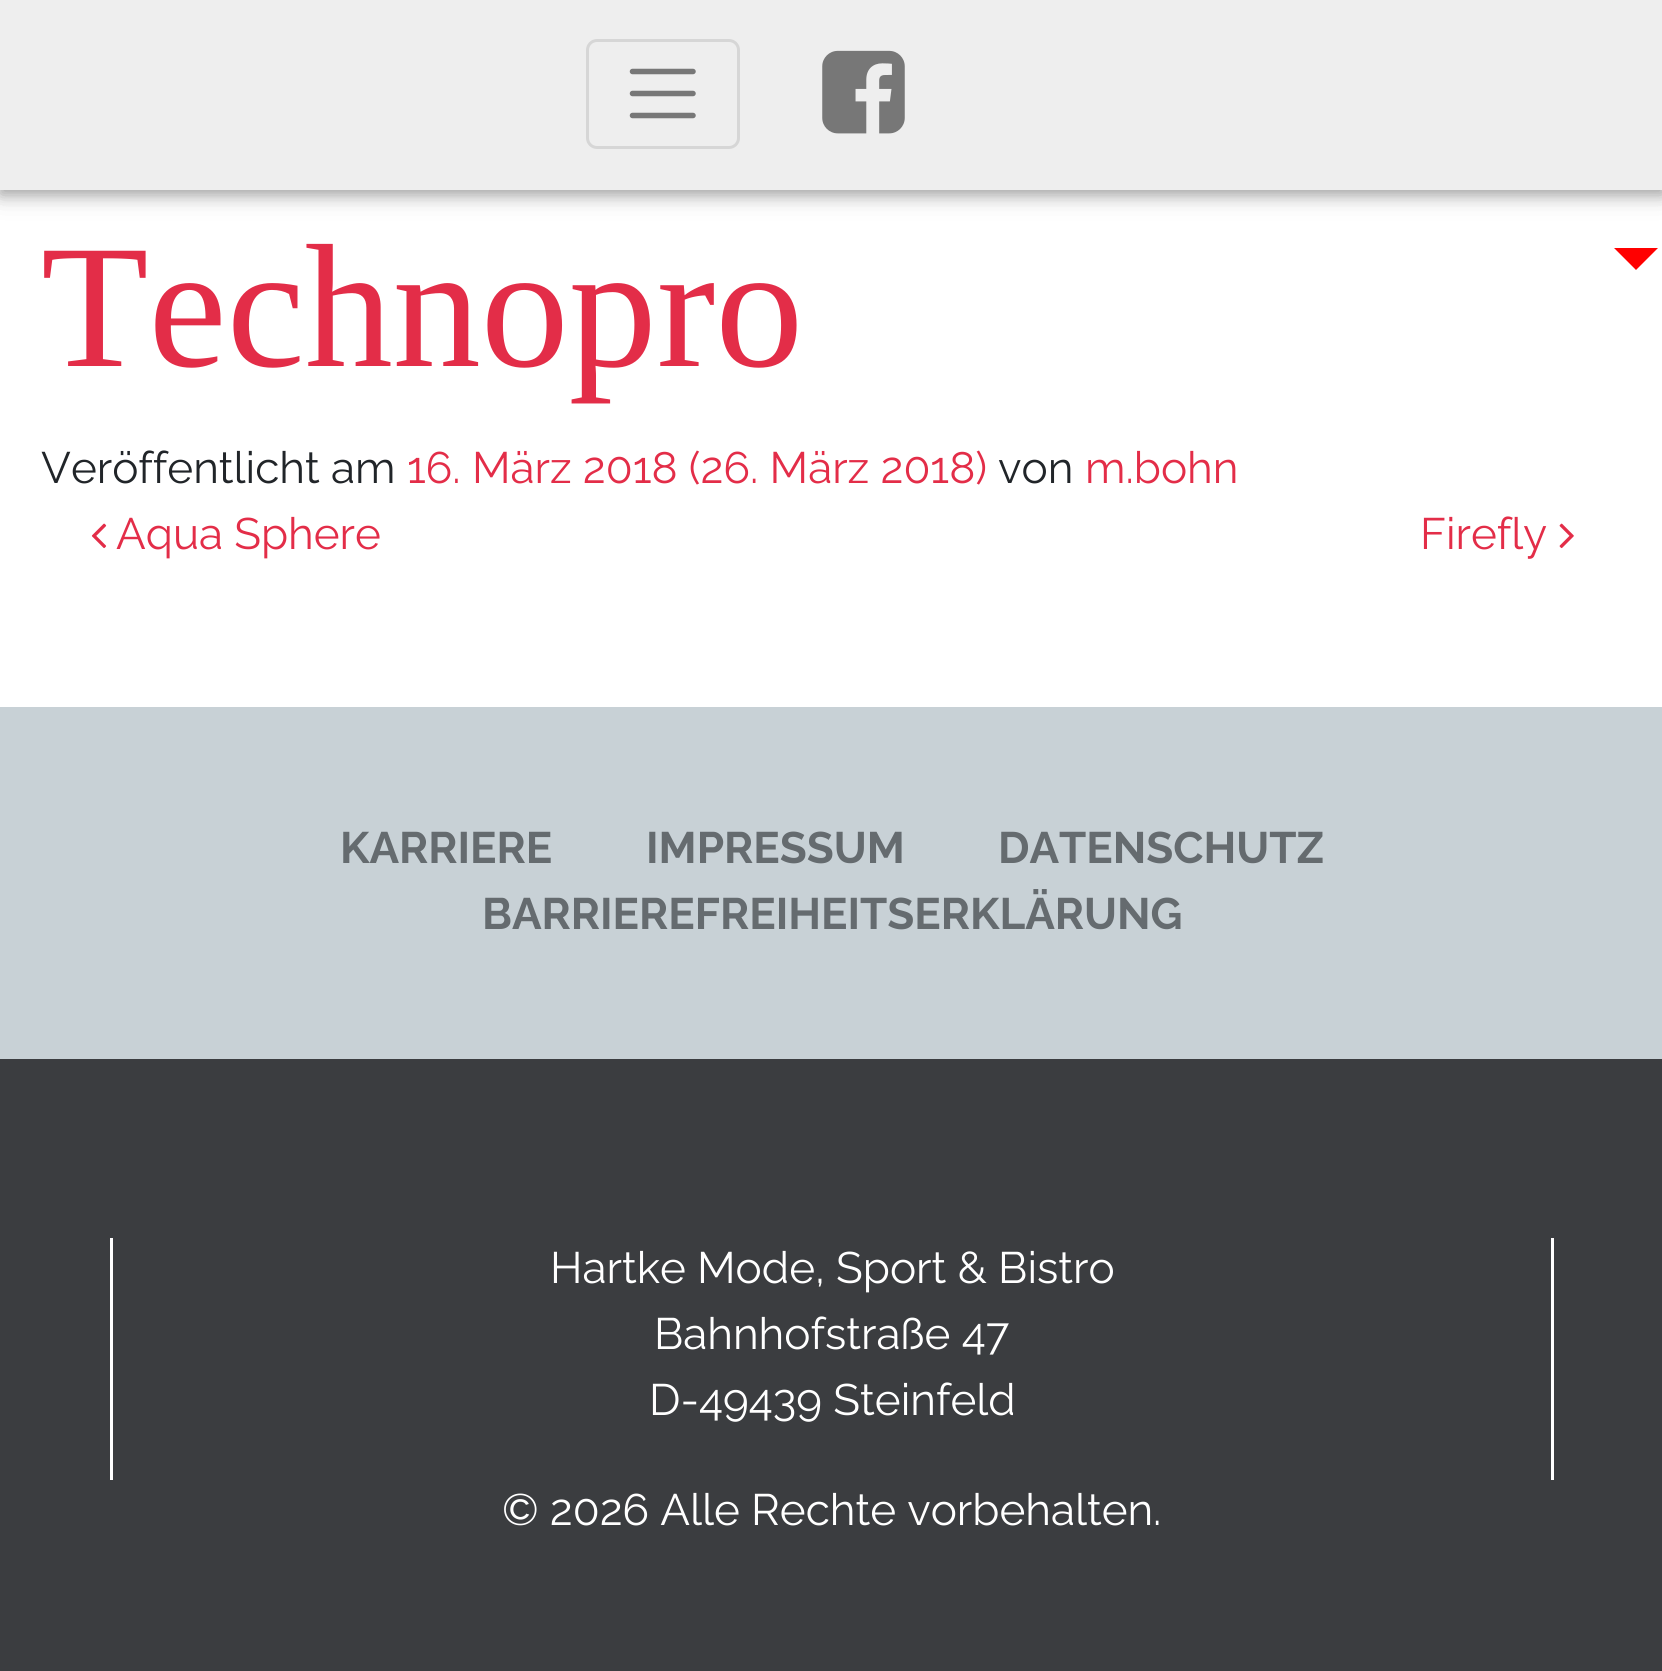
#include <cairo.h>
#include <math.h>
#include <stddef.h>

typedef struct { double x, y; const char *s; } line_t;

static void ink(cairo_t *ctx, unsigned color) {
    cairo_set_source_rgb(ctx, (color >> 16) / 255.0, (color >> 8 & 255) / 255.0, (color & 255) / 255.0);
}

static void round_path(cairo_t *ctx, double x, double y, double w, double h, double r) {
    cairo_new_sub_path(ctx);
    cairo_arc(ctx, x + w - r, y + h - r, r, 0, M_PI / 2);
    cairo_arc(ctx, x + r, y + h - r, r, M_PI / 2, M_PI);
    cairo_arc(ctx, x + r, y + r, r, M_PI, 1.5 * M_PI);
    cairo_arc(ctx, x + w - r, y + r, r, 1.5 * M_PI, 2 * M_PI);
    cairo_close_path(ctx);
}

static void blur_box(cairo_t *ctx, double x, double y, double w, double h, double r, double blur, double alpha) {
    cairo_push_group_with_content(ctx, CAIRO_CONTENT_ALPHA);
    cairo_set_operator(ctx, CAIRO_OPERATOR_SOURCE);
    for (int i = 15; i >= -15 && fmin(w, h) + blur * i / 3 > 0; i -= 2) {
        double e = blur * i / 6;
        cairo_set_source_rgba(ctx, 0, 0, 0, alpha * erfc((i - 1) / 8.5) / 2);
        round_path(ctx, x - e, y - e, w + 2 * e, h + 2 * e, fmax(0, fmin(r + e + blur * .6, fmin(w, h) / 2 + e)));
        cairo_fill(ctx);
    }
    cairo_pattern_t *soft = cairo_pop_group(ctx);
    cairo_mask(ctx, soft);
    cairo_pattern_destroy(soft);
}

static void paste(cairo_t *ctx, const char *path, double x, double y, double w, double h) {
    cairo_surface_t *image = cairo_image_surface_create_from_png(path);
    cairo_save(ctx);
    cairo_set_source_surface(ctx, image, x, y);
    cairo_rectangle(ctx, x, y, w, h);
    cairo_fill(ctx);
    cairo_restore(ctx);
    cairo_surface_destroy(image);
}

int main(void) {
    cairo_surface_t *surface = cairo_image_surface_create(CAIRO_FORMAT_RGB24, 1662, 1671);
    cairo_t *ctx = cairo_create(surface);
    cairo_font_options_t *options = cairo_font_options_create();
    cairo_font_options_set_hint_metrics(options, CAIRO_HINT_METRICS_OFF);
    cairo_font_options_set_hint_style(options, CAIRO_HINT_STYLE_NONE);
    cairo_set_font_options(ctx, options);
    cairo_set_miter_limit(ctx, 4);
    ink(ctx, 0xFFFFFF);
    cairo_paint(ctx);
    ink(ctx, 0x000000);
    blur_box(ctx, 0, 6, 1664, 189, 0, 7, 0.26);
    blur_box(ctx, 0, 6, 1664, 189, 0, 14, 0.16);
    ink(ctx, 0xEEEEEE);
    cairo_rectangle(ctx, 0, 0, 1662, 190);
    cairo_fill(ctx);
    round_path(ctx, 587.5, 40.5, 151, 107, 9.5);
    ink(ctx, 0xD6D6D6);
    cairo_set_line_width(ctx, 3);
    cairo_stroke(ctx);
    cairo_new_path(ctx);
    cairo_move_to(ctx, 632.5, 71.5);
    cairo_line_to(ctx, 693, 71.5);
    cairo_move_to(ctx, 632.5, 93.5);
    cairo_line_to(ctx, 693, 93.5);
    cairo_move_to(ctx, 632.5, 115.5);
    cairo_line_to(ctx, 693, 115.5);
    ink(ctx, 0x777777);
    cairo_set_line_width(ctx, 5.5);
    cairo_set_line_cap(ctx, CAIRO_LINE_CAP_ROUND);
    cairo_stroke(ctx);
    paste(ctx, "media/1.png", 822, 50, 83, 84);
    cairo_select_font_face(ctx, "Liberation Serif", CAIRO_FONT_SLANT_NORMAL, CAIRO_FONT_WEIGHT_NORMAL);
    cairo_set_font_size(ctx, 176);
    ink(ctx, 0xE32D48);
    cairo_move_to(ctx, 41, 366);
    cairo_show_text(ctx, "Technopro");
    cairo_select_font_face(ctx, "Raleway", CAIRO_FONT_SLANT_NORMAL, CAIRO_FONT_WEIGHT_NORMAL);
    cairo_set_font_size(ctx, 44);
    ink(ctx, 0x212529);
    cairo_move_to(ctx, 41, 483);
    cairo_show_text(ctx, "Veröffentlicht am");
    ink(ctx, 0xE32D48);
    cairo_move_to(ctx, 407, 483);
    cairo_show_text(ctx, "16. März 2018 (26. März 2018)");
    ink(ctx, 0x212529);
    cairo_move_to(ctx, 998, 483);
    cairo_show_text(ctx, "von");
    ink(ctx, 0xE32D48);
    cairo_move_to(ctx, 1085, 483);
    cairo_show_text(ctx, "m.bohn");
    ink(ctx, 0xFF0000);
    cairo_new_path(ctx);
    cairo_move_to(ctx, 1614, 248);
    cairo_line_to(ctx, 1658, 248);
    cairo_line_to(ctx, 1636, 270);
    cairo_close_path(ctx);
    cairo_fill(ctx);
    paste(ctx, "media/2.png", 91, 523, 16, 26);
    ink(ctx, 0xE32D48);
    cairo_move_to(ctx, 116, 549);
    cairo_show_text(ctx, "Aqua Sphere");
    cairo_move_to(ctx, 1420, 549);
    cairo_show_text(ctx, "Firefly");
    paste(ctx, "media/3.png", 1559, 523, 15, 26);
    ink(ctx, 0xC8D1D6);
    cairo_rectangle(ctx, 0, 707, 1662, 352);
    cairo_fill(ctx);
    cairo_select_font_face(ctx, "Raleway", CAIRO_FONT_SLANT_NORMAL, CAIRO_FONT_WEIGHT_BOLD);
    ink(ctx, 0x656B6F);
    {
        static const line_t items[] = {
            {340, 863, "KARRIERE"},
            {646, 863, "IMPRESSUM"},
            {998, 863, "DATENSCHUTZ"},
            {482, 929, "BARRIEREFREIHEITSERKLÄRUNG"},
        };
        for (size_t i = 0; i < sizeof items / sizeof *items; i++) {
            cairo_move_to(ctx, items[i].x, items[i].y);
            cairo_show_text(ctx, items[i].s);
        }
    }
    ink(ctx, 0x3B3D40);
    cairo_rectangle(ctx, 0, 1059, 1662, 612);
    cairo_fill(ctx);
    ink(ctx, 0xFFFFFF);
    cairo_rectangle(ctx, 110, 1238, 3, 242);
    cairo_fill(ctx);
    cairo_select_font_face(ctx, "Raleway", CAIRO_FONT_SLANT_NORMAL, CAIRO_FONT_WEIGHT_NORMAL);
    {
        static const line_t items[] = {
            {550, 1283, "Hartke Mode, Sport & Bistro"},
            {654, 1349, "Bahnhofstraße 47"},
            {649, 1415, "D-49439 Steinfeld"},
        };
        for (size_t i = 0; i < sizeof items / sizeof *items; i++) {
            cairo_move_to(ctx, items[i].x, items[i].y);
            cairo_show_text(ctx, items[i].s);
        }
    }
    cairo_rectangle(ctx, 1551, 1238, 3, 242);
    cairo_fill(ctx);
    cairo_move_to(ctx, 502, 1525);
    cairo_show_text(ctx, "© 2026 Alle Rechte vorbehalten.");
    cairo_surface_write_to_png(surface, "image.png");
    cairo_font_options_destroy(options);
    cairo_destroy(ctx);
    cairo_surface_destroy(surface);
    return 0;
}
